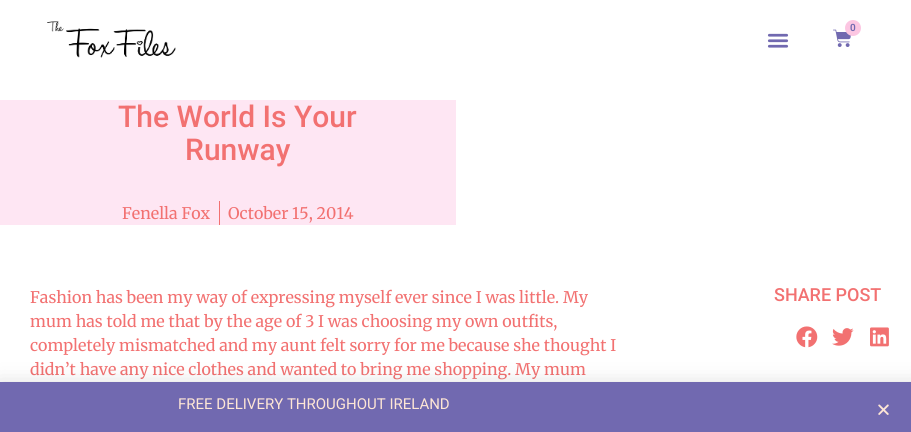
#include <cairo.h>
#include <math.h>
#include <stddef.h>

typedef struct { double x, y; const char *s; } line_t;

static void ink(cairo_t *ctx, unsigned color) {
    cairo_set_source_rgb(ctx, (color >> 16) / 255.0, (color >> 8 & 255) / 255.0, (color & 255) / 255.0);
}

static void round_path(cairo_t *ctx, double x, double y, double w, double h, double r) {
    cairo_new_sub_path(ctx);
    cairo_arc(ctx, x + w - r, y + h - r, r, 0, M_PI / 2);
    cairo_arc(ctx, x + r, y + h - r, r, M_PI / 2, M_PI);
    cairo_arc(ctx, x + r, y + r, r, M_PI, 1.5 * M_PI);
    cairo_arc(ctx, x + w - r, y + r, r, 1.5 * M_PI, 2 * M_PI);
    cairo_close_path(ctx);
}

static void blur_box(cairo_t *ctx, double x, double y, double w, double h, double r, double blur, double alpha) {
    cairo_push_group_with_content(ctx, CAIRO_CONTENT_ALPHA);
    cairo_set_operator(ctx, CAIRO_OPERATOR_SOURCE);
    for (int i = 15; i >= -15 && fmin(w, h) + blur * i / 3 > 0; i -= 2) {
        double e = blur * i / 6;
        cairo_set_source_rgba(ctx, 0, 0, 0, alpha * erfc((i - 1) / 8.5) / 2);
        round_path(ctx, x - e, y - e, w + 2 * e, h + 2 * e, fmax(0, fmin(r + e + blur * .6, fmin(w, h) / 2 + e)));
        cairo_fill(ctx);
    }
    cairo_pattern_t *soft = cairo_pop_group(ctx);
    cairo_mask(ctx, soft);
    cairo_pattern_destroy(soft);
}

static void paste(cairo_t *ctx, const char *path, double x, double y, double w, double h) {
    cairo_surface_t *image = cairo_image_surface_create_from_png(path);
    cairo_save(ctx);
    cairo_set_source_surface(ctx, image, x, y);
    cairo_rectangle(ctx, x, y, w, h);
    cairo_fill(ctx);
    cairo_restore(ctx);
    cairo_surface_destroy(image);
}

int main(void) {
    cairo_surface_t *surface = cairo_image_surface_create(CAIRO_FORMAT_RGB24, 911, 432);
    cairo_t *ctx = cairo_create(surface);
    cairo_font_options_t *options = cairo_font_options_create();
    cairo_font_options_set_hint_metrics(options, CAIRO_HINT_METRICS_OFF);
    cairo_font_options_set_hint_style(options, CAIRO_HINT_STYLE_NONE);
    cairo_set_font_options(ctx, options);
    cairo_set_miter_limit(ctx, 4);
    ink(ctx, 0xFFFFFF);
    cairo_paint(ctx);
    paste(ctx, "media/1.png", 47, 21, 129, 37);
    paste(ctx, "media/2.png", 833, 29, 18, 18);
    ink(ctx, 0xFCC6E2);
    cairo_arc(ctx, 853, 28, 8, 0, 2 * M_PI);
    cairo_fill(ctx);
    cairo_select_font_face(ctx, "Roboto SemiBold", CAIRO_FONT_SLANT_NORMAL, CAIRO_FONT_WEIGHT_NORMAL);
    cairo_set_font_size(ctx, 10);
    ink(ctx, 0x7169B0);
    cairo_move_to(ctx, 850, 31);
    cairo_show_text(ctx, "0");
    paste(ctx, "media/3.png", 767, 33, 22, 15);
    ink(ctx, 0xFEE6F3);
    cairo_rectangle(ctx, 0, 100, 456, 125);
    cairo_fill(ctx);
    cairo_select_font_face(ctx, "Roboto Medium", CAIRO_FONT_SLANT_NORMAL, CAIRO_FONT_WEIGHT_NORMAL);
    cairo_set_font_size(ctx, 30);
    ink(ctx, 0xF27171);
    cairo_move_to(ctx, 118, 127);
    cairo_show_text(ctx, "The World Is Your");
    cairo_move_to(ctx, 185, 160);
    cairo_show_text(ctx, "Runway");
    cairo_select_font_face(ctx, "Merriweather", CAIRO_FONT_SLANT_NORMAL, CAIRO_FONT_WEIGHT_NORMAL);
    cairo_set_font_size(ctx, 16);
    cairo_move_to(ctx, 122, 219);
    cairo_show_text(ctx, "Fenella Fox");
    cairo_rectangle(ctx, 219, 201, 1, 24);
    cairo_fill(ctx);
    {
        static const line_t items[] = {
            {228, 219, "October 15, 2014"},
            {30, 303, "Fashion has been my way of expressing myself ever since I was little. My"},
            {30, 327, "mum has told me that by the age of 3 I was choosing my own outfits,"},
            {30, 351, "completely mismatched and my aunt felt sorry for me because she thought I"},
            {30, 375, "didn’t have any nice clothes and wanted to bring me shopping. My mum"},
        };
        for (size_t i = 0; i < sizeof items / sizeof *items; i++) {
            cairo_move_to(ctx, items[i].x, items[i].y);
            cairo_show_text(ctx, items[i].s);
        }
    }
    cairo_select_font_face(ctx, "Roboto Medium", CAIRO_FONT_SLANT_NORMAL, CAIRO_FONT_WEIGHT_NORMAL);
    cairo_set_font_size(ctx, 18);
    cairo_move_to(ctx, 774, 301);
    cairo_show_text(ctx, "SHARE POST");
    paste(ctx, "media/4.png", 796, 326, 22, 22);
    paste(ctx, "media/5.png", 832, 328, 22, 18);
    paste(ctx, "media/6.png", 870, 327, 19, 20);
    ink(ctx, 0x000000);
    blur_box(ctx, -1, 387, 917, 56, 0, 11.5, 0.2);
    ink(ctx, 0x7169B0);
    cairo_rectangle(ctx, 0, 382, 911, 50);
    cairo_fill(ctx);
    cairo_select_font_face(ctx, "Roboto", CAIRO_FONT_SLANT_NORMAL, CAIRO_FONT_WEIGHT_NORMAL);
    cairo_set_font_size(ctx, 15);
    ink(ctx, 0xFEE6D5);
    cairo_move_to(ctx, 178, 409);
    cairo_show_text(ctx, "FREE DELIVERY THROUGHOUT IRELAND");
    paste(ctx, "media/7.png", 878, 404, 11, 11);
    cairo_surface_write_to_png(surface, "image.png");
    cairo_font_options_destroy(options);
    cairo_destroy(ctx);
    cairo_surface_destroy(surface);
    return 0;
}
